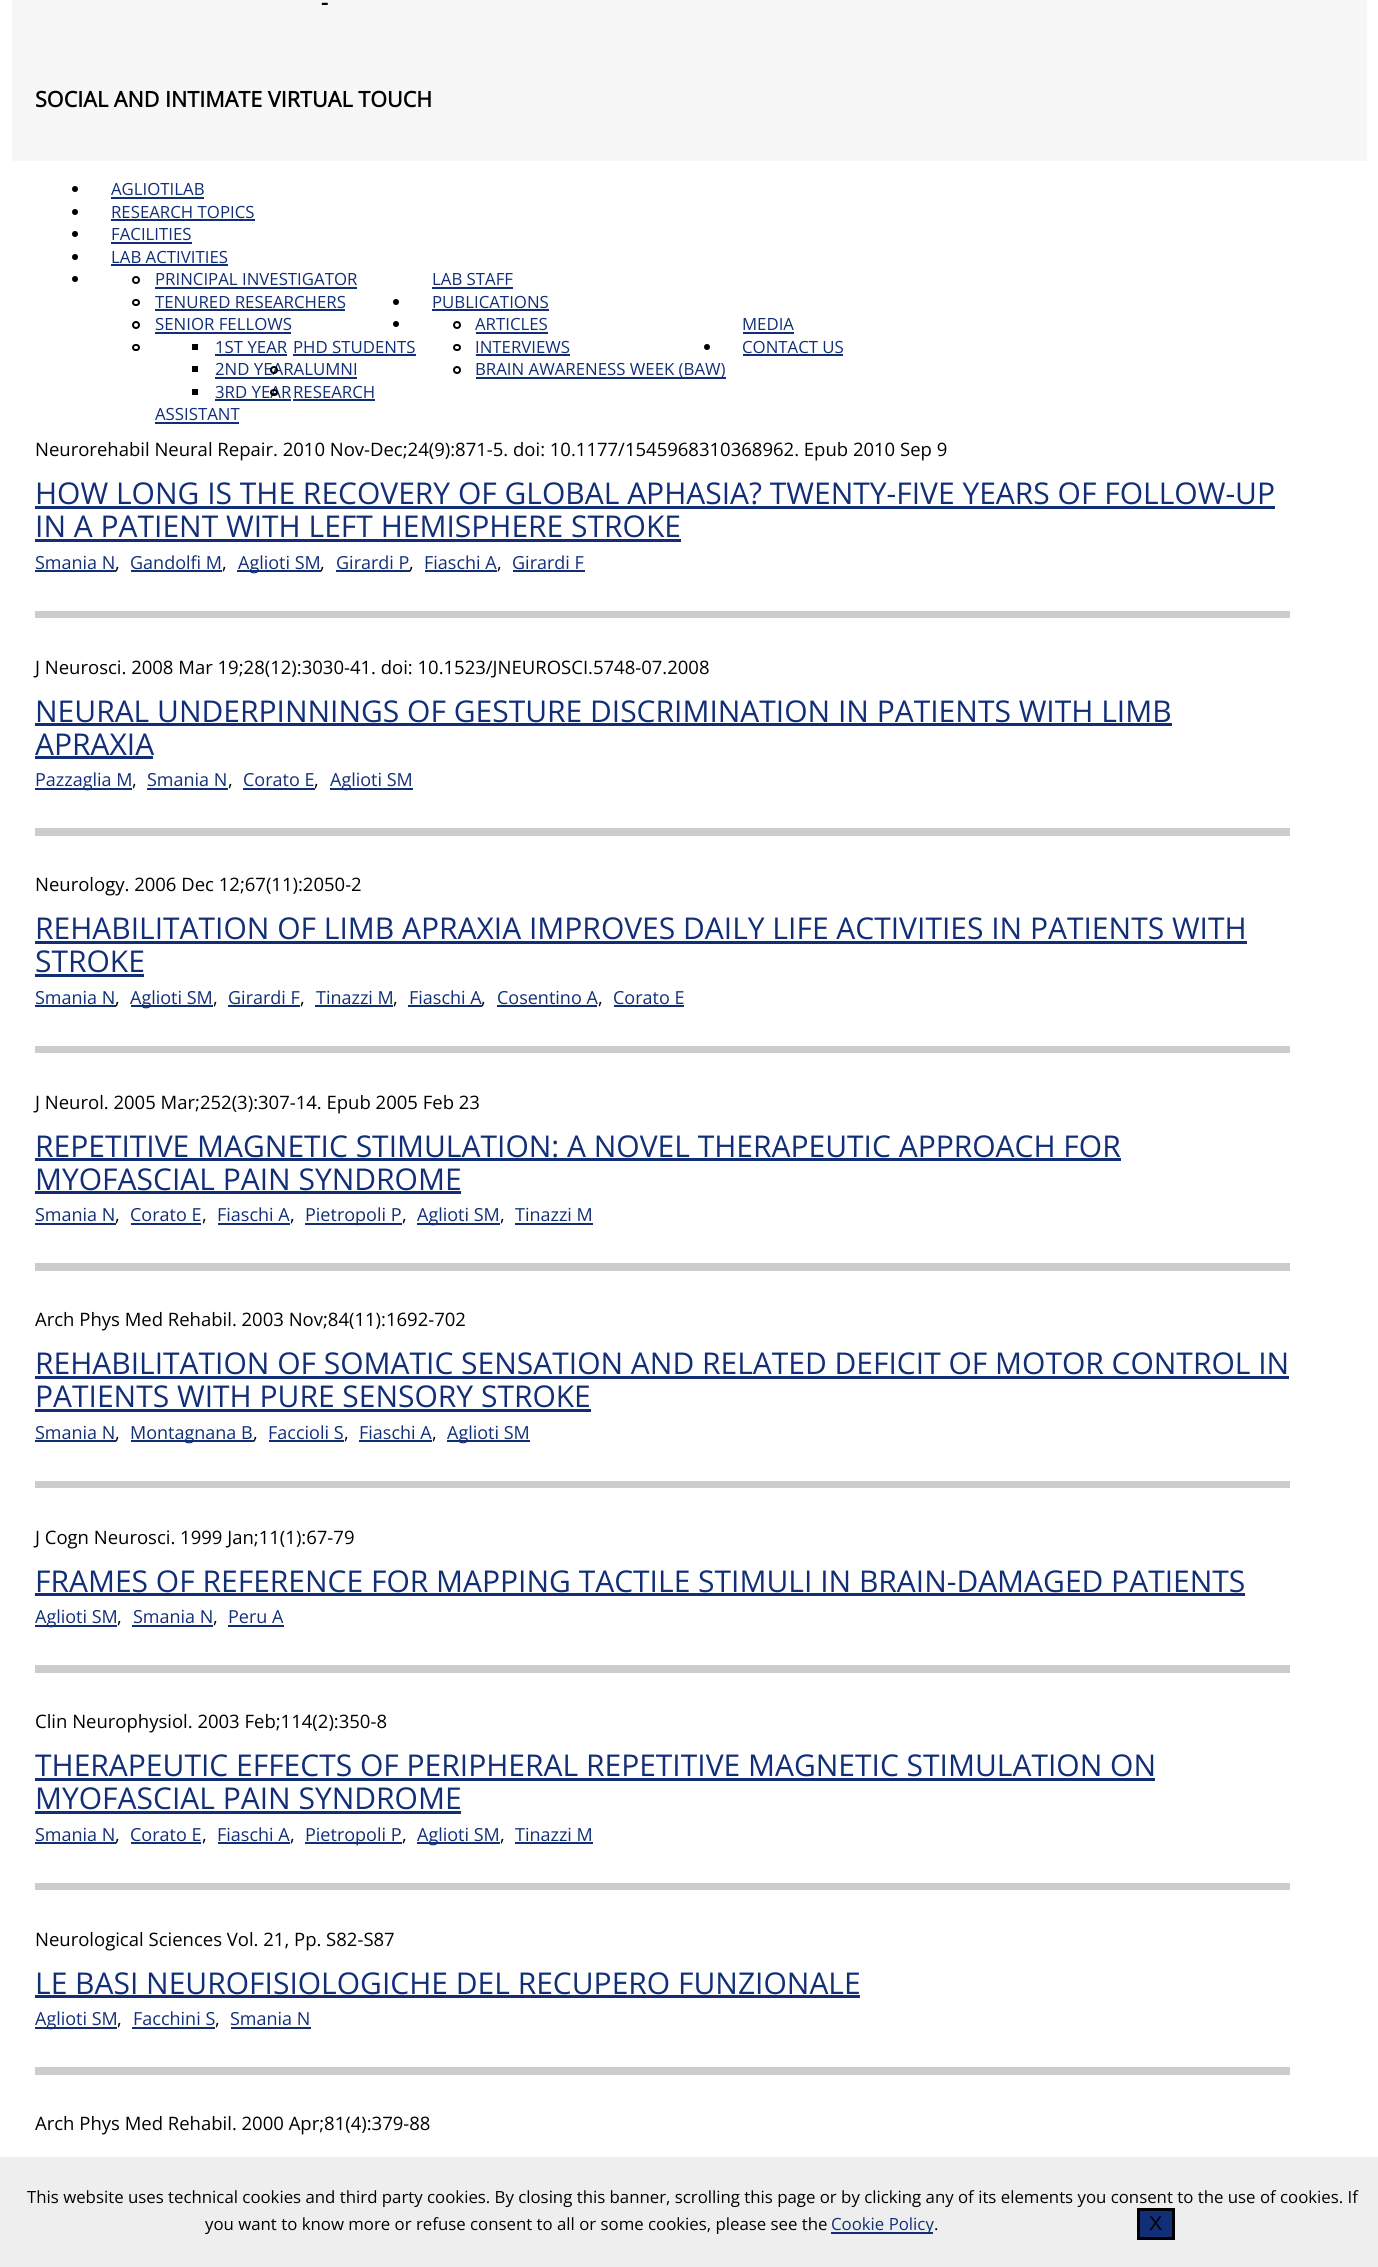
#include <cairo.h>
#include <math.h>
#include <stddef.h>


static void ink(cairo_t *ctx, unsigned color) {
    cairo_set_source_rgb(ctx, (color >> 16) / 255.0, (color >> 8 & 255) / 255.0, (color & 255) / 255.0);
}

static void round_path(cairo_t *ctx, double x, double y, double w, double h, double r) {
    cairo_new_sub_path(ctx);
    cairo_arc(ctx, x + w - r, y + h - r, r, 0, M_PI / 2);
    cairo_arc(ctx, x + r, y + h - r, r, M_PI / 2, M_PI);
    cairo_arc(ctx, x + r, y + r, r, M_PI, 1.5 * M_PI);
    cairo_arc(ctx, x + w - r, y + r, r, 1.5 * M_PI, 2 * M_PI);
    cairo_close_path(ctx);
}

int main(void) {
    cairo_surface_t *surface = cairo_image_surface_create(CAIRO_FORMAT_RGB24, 1378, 2267);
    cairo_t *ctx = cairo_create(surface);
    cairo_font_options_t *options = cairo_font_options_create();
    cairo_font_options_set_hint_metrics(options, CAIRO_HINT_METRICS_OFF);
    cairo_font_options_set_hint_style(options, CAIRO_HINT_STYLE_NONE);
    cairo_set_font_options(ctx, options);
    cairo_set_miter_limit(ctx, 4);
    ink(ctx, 0xFFFFFF);
    cairo_paint(ctx);
    ink(ctx, 0xF8F7F7);
    cairo_rectangle(ctx, 12, 0, 1355, 161);
    cairo_fill(ctx);
    cairo_select_font_face(ctx, "Open Sans", CAIRO_FONT_SLANT_NORMAL, CAIRO_FONT_WEIGHT_BOLD);
    cairo_set_font_size(ctx, 21.6);
    ink(ctx, 0x000000);
    cairo_move_to(ctx, 321, 10);
    cairo_show_text(ctx, "-");
    cairo_move_to(ctx, 35, 107);
    cairo_show_text(ctx, "SOCIAL AND INTIMATE VIRTUAL TOUCH");
    cairo_new_path(ctx);
    cairo_arc(ctx, 75, 189, 3, 0, 2 * M_PI);
    cairo_fill(ctx);
    cairo_select_font_face(ctx, "Open Sans", CAIRO_FONT_SLANT_NORMAL, CAIRO_FONT_WEIGHT_NORMAL);
    cairo_set_font_size(ctx, 16.8);
    ink(ctx, 0x112E77);
    cairo_move_to(ctx, 111, 195);
    cairo_show_text(ctx, "AGLIOTILAB");
    cairo_rectangle(ctx, 111, 197, 93, 2);
    cairo_fill(ctx);
    ink(ctx, 0x000000);
    cairo_arc(ctx, 75, 212, 3, 0, 2 * M_PI);
    cairo_fill(ctx);
    ink(ctx, 0x112E77);
    cairo_move_to(ctx, 111, 218);
    cairo_show_text(ctx, "RESEARCH TOPICS");
    cairo_rectangle(ctx, 111, 219, 144, 2);
    cairo_fill(ctx);
    ink(ctx, 0x000000);
    cairo_arc(ctx, 75, 234, 3, 0, 2 * M_PI);
    cairo_fill(ctx);
    ink(ctx, 0x112E77);
    cairo_move_to(ctx, 111, 240);
    cairo_show_text(ctx, "FACILITIES");
    cairo_rectangle(ctx, 111, 242, 81, 2);
    cairo_fill(ctx);
    ink(ctx, 0x000000);
    cairo_arc(ctx, 75, 257, 3, 0, 2 * M_PI);
    cairo_fill(ctx);
    ink(ctx, 0x112E77);
    cairo_move_to(ctx, 111, 263);
    cairo_show_text(ctx, "LAB ACTIVITIES");
    cairo_rectangle(ctx, 111, 264, 117, 2);
    cairo_fill(ctx);
    ink(ctx, 0x000000);
    cairo_arc(ctx, 75, 279, 3, 0, 2 * M_PI);
    cairo_fill(ctx);
    cairo_arc(ctx, 136, 280, 3, 0, 2 * M_PI);
    cairo_stroke(ctx);
    ink(ctx, 0x112E77);
    cairo_move_to(ctx, 155, 285);
    cairo_show_text(ctx, "PRINCIPAL INVESTIGATOR");
    cairo_rectangle(ctx, 155, 287, 202, 2);
    cairo_fill(ctx);
    round_path(ctx, 133, 300, 6, 5, 2.5);
    ink(ctx, 0x000000);
    cairo_stroke(ctx);
    ink(ctx, 0x112E77);
    cairo_move_to(ctx, 155, 308);
    cairo_show_text(ctx, "TENURED RESEARCHERS");
    cairo_rectangle(ctx, 155, 309, 190, 2);
    cairo_fill(ctx);
    cairo_arc(ctx, 136, 325, 3, 0, 2 * M_PI);
    ink(ctx, 0x000000);
    cairo_stroke(ctx);
    ink(ctx, 0x112E77);
    cairo_move_to(ctx, 155, 330);
    cairo_show_text(ctx, "SENIOR FELLOWS");
    cairo_rectangle(ctx, 155, 332, 136, 2);
    cairo_fill(ctx);
    ink(ctx, 0x000000);
    cairo_rectangle(ctx, 192, 344, 6, 6);
    cairo_fill(ctx);
    ink(ctx, 0x112E77);
    cairo_move_to(ctx, 215, 353);
    cairo_show_text(ctx, "1ST YEAR");
    cairo_rectangle(ctx, 215, 354, 72, 2);
    cairo_fill(ctx);
    ink(ctx, 0x000000);
    cairo_rectangle(ctx, 192, 366, 6, 6);
    cairo_fill(ctx);
    ink(ctx, 0x112E77);
    cairo_move_to(ctx, 215, 375);
    cairo_show_text(ctx, "2ND YEARALUMNI");
    cairo_rectangle(ctx, 215, 377, 142, 2);
    cairo_fill(ctx);
    ink(ctx, 0x000000);
    cairo_rectangle(ctx, 192, 389, 6, 6);
    cairo_fill(ctx);
    ink(ctx, 0x112E77);
    cairo_move_to(ctx, 215, 398);
    cairo_show_text(ctx, "3RD YEAR");
    cairo_rectangle(ctx, 215, 399, 76, 2);
    cairo_fill(ctx);
    round_path(ctx, 133, 345, 6, 5, 2.5);
    ink(ctx, 0x000000);
    cairo_stroke(ctx);
    ink(ctx, 0x112E77);
    cairo_move_to(ctx, 293, 353);
    cairo_show_text(ctx, "PHD STUDENTS");
    cairo_rectangle(ctx, 293, 354, 123, 2);
    cairo_fill(ctx);
    cairo_arc(ctx, 274, 370, 3, 0, 2 * M_PI);
    ink(ctx, 0x000000);
    cairo_stroke(ctx);
    round_path(ctx, 271, 390, 6, 5, 2.5);
    cairo_stroke(ctx);
    ink(ctx, 0x112E77);
    cairo_move_to(ctx, 293, 398);
    cairo_show_text(ctx, "RESEARCH");
    cairo_rectangle(ctx, 293, 399, 82, 2);
    cairo_fill(ctx);
    cairo_move_to(ctx, 155, 420);
    cairo_show_text(ctx, "ASSISTANT");
    cairo_rectangle(ctx, 155, 422, 84, 2);
    cairo_fill(ctx);
    cairo_move_to(ctx, 432, 285);
    cairo_show_text(ctx, "LAB STAFF");
    cairo_rectangle(ctx, 432, 287, 81, 2);
    cairo_fill(ctx);
    ink(ctx, 0x000000);
    cairo_arc(ctx, 396, 302, 3, 0, 2 * M_PI);
    cairo_fill(ctx);
    ink(ctx, 0x112E77);
    cairo_move_to(ctx, 432, 308);
    cairo_show_text(ctx, "PUBLICATIONS");
    cairo_rectangle(ctx, 432, 309, 117, 2);
    cairo_fill(ctx);
    ink(ctx, 0x000000);
    cairo_arc(ctx, 396, 324, 3, 0, 2 * M_PI);
    cairo_fill(ctx);
    cairo_arc(ctx, 457, 325, 3, 0, 2 * M_PI);
    cairo_stroke(ctx);
    ink(ctx, 0x112E77);
    cairo_move_to(ctx, 475, 330);
    cairo_show_text(ctx, "ARTICLES");
    cairo_rectangle(ctx, 476, 332, 72, 2);
    cairo_fill(ctx);
    round_path(ctx, 454, 345, 6, 5, 2.5);
    ink(ctx, 0x000000);
    cairo_stroke(ctx);
    ink(ctx, 0x112E77);
    cairo_move_to(ctx, 475, 353);
    cairo_show_text(ctx, "INTERVIEWS");
    cairo_rectangle(ctx, 476, 354, 94, 2);
    cairo_fill(ctx);
    cairo_arc(ctx, 457, 370, 3, 0, 2 * M_PI);
    ink(ctx, 0x000000);
    cairo_stroke(ctx);
    ink(ctx, 0x112E77);
    cairo_rectangle(ctx, 476, 377, 250, 2);
    cairo_fill(ctx);
    cairo_move_to(ctx, 475, 375);
    cairo_show_text(ctx, "BRAIN AWARENESS WEEK (BAW)");
    cairo_move_to(ctx, 742, 330);
    cairo_show_text(ctx, "MEDIA");
    cairo_rectangle(ctx, 743, 332, 51, 2);
    cairo_fill(ctx);
    ink(ctx, 0x000000);
    cairo_arc(ctx, 707, 347, 3, 0, 2 * M_PI);
    cairo_fill(ctx);
    ink(ctx, 0x112E77);
    cairo_move_to(ctx, 742, 353);
    cairo_show_text(ctx, "CONTACT US");
    cairo_rectangle(ctx, 743, 354, 100, 2);
    cairo_fill(ctx);
    ink(ctx, 0xCCCCCC);
    cairo_rectangle(ctx, 35, 611, 1255, 7);
    cairo_fill(ctx);
    cairo_set_font_size(ctx, 18.5);
    ink(ctx, 0x000000);
    cairo_move_to(ctx, 35, 456);
    cairo_show_text(ctx, "Neurorehabil Neural Repair. 2010 Nov-Dec;24(9):871-5. doi: 10.1177/1545968310368962. Epub 2010 Sep 9");
    cairo_set_font_size(ctx, 30);
    ink(ctx, 0x112E77);
    cairo_move_to(ctx, 35, 504);
    cairo_show_text(ctx, "HOW LONG IS THE RECOVERY OF GLOBAL APHASIA? TWENTY-FIVE YEARS OF FOLLOW-UP");
    cairo_rectangle(ctx, 35, 506, 1240, 3);
    cairo_fill(ctx);
    cairo_move_to(ctx, 35, 537);
    cairo_show_text(ctx, "IN A PATIENT WITH LEFT HEMISPHERE STROKE");
    cairo_rectangle(ctx, 35, 539, 646, 3);
    cairo_fill(ctx);
    cairo_set_font_size(ctx, 18);
    cairo_move_to(ctx, 35, 569);
    cairo_show_text(ctx, "Smania N");
    cairo_rectangle(ctx, 35, 570, 81, 2);
    cairo_fill(ctx);
    ink(ctx, 0x000000);
    cairo_move_to(ctx, 115, 569);
    cairo_show_text(ctx, ",");
    ink(ctx, 0x112E77);
    cairo_move_to(ctx, 130, 569);
    cairo_show_text(ctx, "Gandolfi M");
    ink(ctx, 0x000000);
    cairo_move_to(ctx, 222, 569);
    cairo_show_text(ctx, ",");
    ink(ctx, 0x112E77);
    cairo_rectangle(ctx, 131, 570, 91, 2);
    cairo_fill(ctx);
    cairo_rectangle(ctx, 237, 570, 84, 2);
    cairo_fill(ctx);
    cairo_move_to(ctx, 238, 569);
    cairo_show_text(ctx, "Aglioti SM");
    ink(ctx, 0x000000);
    cairo_move_to(ctx, 320, 569);
    cairo_show_text(ctx, ",");
    ink(ctx, 0x112E77);
    cairo_move_to(ctx, 336, 569);
    cairo_show_text(ctx, "Girardi P");
    cairo_rectangle(ctx, 336, 570, 74, 2);
    cairo_fill(ctx);
    ink(ctx, 0x000000);
    cairo_move_to(ctx, 409, 569);
    cairo_show_text(ctx, ",");
    ink(ctx, 0x112E77);
    cairo_move_to(ctx, 424, 569);
    cairo_show_text(ctx, "Fiaschi A");
    ink(ctx, 0x000000);
    cairo_move_to(ctx, 497, 569);
    cairo_show_text(ctx, ",");
    ink(ctx, 0x112E77);
    cairo_rectangle(ctx, 425, 570, 72, 2);
    cairo_fill(ctx);
    cairo_rectangle(ctx, 513, 570, 72, 2);
    cairo_fill(ctx);
    cairo_move_to(ctx, 512, 569);
    cairo_show_text(ctx, "Girardi F");
    ink(ctx, 0xCCCCCC);
    cairo_rectangle(ctx, 35, 828, 1255, 8);
    cairo_fill(ctx);
    cairo_set_font_size(ctx, 18.5);
    ink(ctx, 0x000000);
    cairo_move_to(ctx, 35, 674);
    cairo_show_text(ctx, "J Neurosci. 2008 Mar 19;28(12):3030-41. doi: 10.1523/JNEUROSCI.5748-07.2008");
    cairo_set_font_size(ctx, 30);
    ink(ctx, 0x112E77);
    cairo_move_to(ctx, 35, 722);
    cairo_show_text(ctx, "NEURAL UNDERPINNINGS OF GESTURE DISCRIMINATION IN PATIENTS WITH LIMB");
    cairo_rectangle(ctx, 35, 723, 1137, 3);
    cairo_fill(ctx);
    cairo_move_to(ctx, 35, 755);
    cairo_show_text(ctx, "APRAXIA");
    cairo_rectangle(ctx, 35, 756, 118, 3);
    cairo_fill(ctx);
    cairo_rectangle(ctx, 35, 788, 97, 2);
    cairo_fill(ctx);
    cairo_set_font_size(ctx, 18);
    cairo_move_to(ctx, 35, 786);
    cairo_show_text(ctx, "Pazzaglia M");
    ink(ctx, 0x000000);
    cairo_move_to(ctx, 132, 786);
    cairo_show_text(ctx, ",");
    ink(ctx, 0x112E77);
    cairo_move_to(ctx, 147, 786);
    cairo_show_text(ctx, "Smania N");
    ink(ctx, 0x000000);
    cairo_move_to(ctx, 228, 786);
    cairo_show_text(ctx, ",");
    ink(ctx, 0x112E77);
    cairo_rectangle(ctx, 147, 788, 81, 2);
    cairo_fill(ctx);
    cairo_move_to(ctx, 243, 786);
    cairo_show_text(ctx, "Corato E");
    ink(ctx, 0x000000);
    cairo_move_to(ctx, 314, 786);
    cairo_show_text(ctx, ",");
    ink(ctx, 0x112E77);
    cairo_rectangle(ctx, 243, 788, 72, 2);
    cairo_fill(ctx);
    cairo_rectangle(ctx, 330, 788, 83, 2);
    cairo_fill(ctx);
    cairo_move_to(ctx, 330, 786);
    cairo_show_text(ctx, "Aglioti SM");
    ink(ctx, 0xCCCCCC);
    cairo_rectangle(ctx, 35, 1046, 1255, 7);
    cairo_fill(ctx);
    cairo_set_font_size(ctx, 18.5);
    ink(ctx, 0x000000);
    cairo_move_to(ctx, 35, 891);
    cairo_show_text(ctx, "Neurology. 2006 Dec 12;67(11):2050-2");
    cairo_set_font_size(ctx, 30);
    ink(ctx, 0x112E77);
    cairo_move_to(ctx, 35, 939);
    cairo_show_text(ctx, "REHABILITATION OF LIMB APRAXIA IMPROVES DAILY LIFE ACTIVITIES IN PATIENTS WITH");
    cairo_rectangle(ctx, 35, 941, 1212, 3);
    cairo_fill(ctx);
    cairo_move_to(ctx, 35, 972);
    cairo_show_text(ctx, "STROKE");
    cairo_rectangle(ctx, 35, 974, 109, 3);
    cairo_fill(ctx);
    cairo_set_font_size(ctx, 18);
    cairo_move_to(ctx, 35, 1004);
    cairo_show_text(ctx, "Smania N");
    cairo_rectangle(ctx, 35, 1005, 81, 2);
    cairo_fill(ctx);
    ink(ctx, 0x000000);
    cairo_move_to(ctx, 115, 1004);
    cairo_show_text(ctx, ",");
    ink(ctx, 0x112E77);
    cairo_rectangle(ctx, 131, 1005, 82, 2);
    cairo_fill(ctx);
    cairo_move_to(ctx, 130, 1004);
    cairo_show_text(ctx, "Aglioti SM");
    ink(ctx, 0x000000);
    cairo_move_to(ctx, 213, 1004);
    cairo_show_text(ctx, ",");
    ink(ctx, 0x112E77);
    cairo_move_to(ctx, 228, 1004);
    cairo_show_text(ctx, "Girardi F");
    ink(ctx, 0x000000);
    cairo_move_to(ctx, 300, 1004);
    cairo_show_text(ctx, ",");
    ink(ctx, 0x112E77);
    cairo_rectangle(ctx, 228, 1005, 72, 2);
    cairo_fill(ctx);
    cairo_move_to(ctx, 316, 1004);
    cairo_show_text(ctx, "Tinazzi M");
    ink(ctx, 0x000000);
    cairo_move_to(ctx, 393, 1004);
    cairo_show_text(ctx, ",");
    ink(ctx, 0x112E77);
    cairo_rectangle(ctx, 315, 1005, 78, 2);
    cairo_fill(ctx);
    cairo_move_to(ctx, 409, 1004);
    cairo_show_text(ctx, "Fiaschi A");
    ink(ctx, 0x000000);
    cairo_move_to(ctx, 481, 1004);
    cairo_show_text(ctx, ",");
    ink(ctx, 0x112E77);
    cairo_rectangle(ctx, 408, 1005, 74, 2);
    cairo_fill(ctx);
    cairo_move_to(ctx, 497, 1004);
    cairo_show_text(ctx, "Cosentino A");
    ink(ctx, 0x000000);
    cairo_move_to(ctx, 598, 1004);
    cairo_show_text(ctx, ",");
    ink(ctx, 0x112E77);
    cairo_rectangle(ctx, 497, 1005, 100, 2);
    cairo_fill(ctx);
    cairo_rectangle(ctx, 614, 1005, 70, 2);
    cairo_fill(ctx);
    cairo_move_to(ctx, 613, 1004);
    cairo_show_text(ctx, "Corato E");
    ink(ctx, 0xCCCCCC);
    cairo_rectangle(ctx, 35, 1263, 1255, 8);
    cairo_fill(ctx);
    cairo_set_font_size(ctx, 18.5);
    ink(ctx, 0x000000);
    cairo_move_to(ctx, 35, 1109);
    cairo_show_text(ctx, "J Neurol. 2005 Mar;252(3):307-14. Epub 2005 Feb 23");
    cairo_set_font_size(ctx, 30);
    ink(ctx, 0x112E77);
    cairo_move_to(ctx, 35, 1157);
    cairo_show_text(ctx, "REPETITIVE MAGNETIC STIMULATION: A NOVEL THERAPEUTIC APPROACH FOR");
    cairo_rectangle(ctx, 35, 1158, 1086, 3);
    cairo_fill(ctx);
    cairo_move_to(ctx, 35, 1190);
    cairo_show_text(ctx, "MYOFASCIAL PAIN SYNDROME");
    cairo_rectangle(ctx, 35, 1191, 426, 3);
    cairo_fill(ctx);
    cairo_set_font_size(ctx, 18);
    cairo_move_to(ctx, 35, 1221);
    cairo_show_text(ctx, "Smania N");
    cairo_rectangle(ctx, 35, 1223, 81, 2);
    cairo_fill(ctx);
    ink(ctx, 0x000000);
    cairo_move_to(ctx, 115, 1221);
    cairo_show_text(ctx, ",");
    ink(ctx, 0x112E77);
    cairo_move_to(ctx, 130, 1221);
    cairo_show_text(ctx, "Corato E");
    ink(ctx, 0x000000);
    cairo_move_to(ctx, 202, 1221);
    cairo_show_text(ctx, ",");
    ink(ctx, 0x112E77);
    cairo_rectangle(ctx, 131, 1223, 70, 2);
    cairo_fill(ctx);
    cairo_move_to(ctx, 217, 1221);
    cairo_show_text(ctx, "Fiaschi A");
    ink(ctx, 0x000000);
    cairo_move_to(ctx, 290, 1221);
    cairo_show_text(ctx, ",");
    ink(ctx, 0x112E77);
    cairo_rectangle(ctx, 218, 1223, 72, 2);
    cairo_fill(ctx);
    cairo_rectangle(ctx, 305, 1223, 97, 2);
    cairo_fill(ctx);
    cairo_move_to(ctx, 305, 1221);
    cairo_show_text(ctx, "Pietropoli P");
    ink(ctx, 0x000000);
    cairo_move_to(ctx, 402, 1221);
    cairo_show_text(ctx, ",");
    ink(ctx, 0x112E77);
    cairo_rectangle(ctx, 417, 1223, 83, 2);
    cairo_fill(ctx);
    cairo_move_to(ctx, 417, 1221);
    cairo_show_text(ctx, "Aglioti SM");
    ink(ctx, 0x000000);
    cairo_move_to(ctx, 500, 1221);
    cairo_show_text(ctx, ",");
    ink(ctx, 0x112E77);
    cairo_rectangle(ctx, 515, 1223, 78, 2);
    cairo_fill(ctx);
    cairo_move_to(ctx, 515, 1221);
    cairo_show_text(ctx, "Tinazzi M");
    ink(ctx, 0xCCCCCC);
    cairo_rectangle(ctx, 35, 1481, 1255, 7);
    cairo_fill(ctx);
    cairo_set_font_size(ctx, 18.5);
    ink(ctx, 0x000000);
    cairo_move_to(ctx, 35, 1326);
    cairo_show_text(ctx, "Arch Phys Med Rehabil. 2003 Nov;84(11):1692-702");
    cairo_set_font_size(ctx, 30);
    ink(ctx, 0x112E77);
    cairo_move_to(ctx, 35, 1374);
    cairo_show_text(ctx, "REHABILITATION OF SOMATIC SENSATION AND RELATED DEFICIT OF MOTOR CONTROL IN");
    cairo_rectangle(ctx, 35, 1376, 1254, 3);
    cairo_fill(ctx);
    cairo_move_to(ctx, 35, 1407);
    cairo_show_text(ctx, "PATIENTS WITH PURE SENSORY STROKE");
    cairo_rectangle(ctx, 35, 1409, 556, 3);
    cairo_fill(ctx);
    cairo_set_font_size(ctx, 18);
    cairo_move_to(ctx, 35, 1439);
    cairo_show_text(ctx, "Smania N");
    cairo_rectangle(ctx, 35, 1440, 81, 2);
    cairo_fill(ctx);
    ink(ctx, 0x000000);
    cairo_move_to(ctx, 115, 1439);
    cairo_show_text(ctx, ",");
    ink(ctx, 0x112E77);
    cairo_rectangle(ctx, 131, 1440, 123, 2);
    cairo_fill(ctx);
    cairo_move_to(ctx, 130, 1439);
    cairo_show_text(ctx, "Montagnana B");
    ink(ctx, 0x000000);
    cairo_move_to(ctx, 253, 1439);
    cairo_show_text(ctx, ",");
    ink(ctx, 0x112E77);
    cairo_move_to(ctx, 268, 1439);
    cairo_show_text(ctx, "Faccioli S");
    ink(ctx, 0x000000);
    cairo_move_to(ctx, 344, 1439);
    cairo_show_text(ctx, ",");
    ink(ctx, 0x112E77);
    cairo_rectangle(ctx, 269, 1440, 75, 2);
    cairo_fill(ctx);
    cairo_move_to(ctx, 359, 1439);
    cairo_show_text(ctx, "Fiaschi A");
    ink(ctx, 0x000000);
    cairo_move_to(ctx, 432, 1439);
    cairo_show_text(ctx, ",");
    ink(ctx, 0x112E77);
    cairo_rectangle(ctx, 359, 1440, 73, 2);
    cairo_fill(ctx);
    cairo_rectangle(ctx, 447, 1440, 83, 2);
    cairo_fill(ctx);
    cairo_move_to(ctx, 447, 1439);
    cairo_show_text(ctx, "Aglioti SM");
    ink(ctx, 0xCCCCCC);
    cairo_rectangle(ctx, 35, 1665, 1255, 8);
    cairo_fill(ctx);
    cairo_set_font_size(ctx, 18.5);
    ink(ctx, 0x000000);
    cairo_move_to(ctx, 35, 1544);
    cairo_show_text(ctx, "J Cogn Neurosci. 1999 Jan;11(1):67-79");
    cairo_set_font_size(ctx, 30);
    ink(ctx, 0x112E77);
    cairo_move_to(ctx, 35, 1592);
    cairo_show_text(ctx, "FRAMES OF REFERENCE FOR MAPPING TACTILE STIMULI IN BRAIN-DAMAGED PATIENTS");
    cairo_rectangle(ctx, 35, 1593, 1210, 3);
    cairo_fill(ctx);
    cairo_rectangle(ctx, 35, 1625, 82, 2);
    cairo_fill(ctx);
    cairo_set_font_size(ctx, 18);
    cairo_move_to(ctx, 35, 1623);
    cairo_show_text(ctx, "Aglioti SM");
    ink(ctx, 0x000000);
    cairo_move_to(ctx, 117, 1623);
    cairo_show_text(ctx, ",");
    ink(ctx, 0x112E77);
    cairo_move_to(ctx, 133, 1623);
    cairo_show_text(ctx, "Smania N");
    ink(ctx, 0x000000);
    cairo_move_to(ctx, 213, 1623);
    cairo_show_text(ctx, ",");
    ink(ctx, 0x112E77);
    cairo_rectangle(ctx, 132, 1625, 81, 2);
    cairo_fill(ctx);
    cairo_rectangle(ctx, 228, 1625, 56, 2);
    cairo_fill(ctx);
    cairo_move_to(ctx, 228, 1623);
    cairo_show_text(ctx, "Peru A");
    ink(ctx, 0xCCCCCC);
    cairo_rectangle(ctx, 35, 1883, 1255, 7);
    cairo_fill(ctx);
    cairo_set_font_size(ctx, 18.5);
    ink(ctx, 0x000000);
    cairo_move_to(ctx, 35, 1728);
    cairo_show_text(ctx, "Clin Neurophysiol. 2003 Feb;114(2):350-8");
    cairo_set_font_size(ctx, 30);
    ink(ctx, 0x112E77);
    cairo_move_to(ctx, 35, 1776);
    cairo_show_text(ctx, "THERAPEUTIC EFFECTS OF PERIPHERAL REPETITIVE MAGNETIC STIMULATION ON");
    cairo_rectangle(ctx, 35, 1778, 1120, 3);
    cairo_fill(ctx);
    cairo_move_to(ctx, 35, 1809);
    cairo_show_text(ctx, "MYOFASCIAL PAIN SYNDROME");
    cairo_rectangle(ctx, 35, 1811, 426, 3);
    cairo_fill(ctx);
    cairo_set_font_size(ctx, 18);
    cairo_move_to(ctx, 35, 1841);
    cairo_show_text(ctx, "Smania N");
    cairo_rectangle(ctx, 35, 1842, 81, 2);
    cairo_fill(ctx);
    ink(ctx, 0x000000);
    cairo_move_to(ctx, 115, 1841);
    cairo_show_text(ctx, ",");
    ink(ctx, 0x112E77);
    cairo_move_to(ctx, 130, 1841);
    cairo_show_text(ctx, "Corato E");
    ink(ctx, 0x000000);
    cairo_move_to(ctx, 202, 1841);
    cairo_show_text(ctx, ",");
    ink(ctx, 0x112E77);
    cairo_rectangle(ctx, 131, 1842, 70, 2);
    cairo_fill(ctx);
    cairo_move_to(ctx, 217, 1841);
    cairo_show_text(ctx, "Fiaschi A");
    ink(ctx, 0x000000);
    cairo_move_to(ctx, 290, 1841);
    cairo_show_text(ctx, ",");
    ink(ctx, 0x112E77);
    cairo_rectangle(ctx, 218, 1842, 72, 2);
    cairo_fill(ctx);
    cairo_rectangle(ctx, 305, 1842, 97, 2);
    cairo_fill(ctx);
    cairo_move_to(ctx, 305, 1841);
    cairo_show_text(ctx, "Pietropoli P");
    ink(ctx, 0x000000);
    cairo_move_to(ctx, 402, 1841);
    cairo_show_text(ctx, ",");
    ink(ctx, 0x112E77);
    cairo_rectangle(ctx, 417, 1842, 83, 2);
    cairo_fill(ctx);
    cairo_move_to(ctx, 417, 1841);
    cairo_show_text(ctx, "Aglioti SM");
    ink(ctx, 0x000000);
    cairo_move_to(ctx, 500, 1841);
    cairo_show_text(ctx, ",");
    ink(ctx, 0x112E77);
    cairo_rectangle(ctx, 515, 1842, 78, 2);
    cairo_fill(ctx);
    cairo_move_to(ctx, 515, 1841);
    cairo_show_text(ctx, "Tinazzi M");
    ink(ctx, 0xCCCCCC);
    cairo_rectangle(ctx, 35, 2067, 1255, 8);
    cairo_fill(ctx);
    cairo_set_font_size(ctx, 18.5);
    ink(ctx, 0x000000);
    cairo_move_to(ctx, 35, 1946);
    cairo_show_text(ctx, "Neurological Sciences Vol. 21, Pp. S82-S87");
    cairo_set_font_size(ctx, 30);
    ink(ctx, 0x112E77);
    cairo_move_to(ctx, 35, 1994);
    cairo_show_text(ctx, "LE BASI NEUROFISIOLOGICHE DEL RECUPERO FUNZIONALE");
    cairo_rectangle(ctx, 35, 1995, 825, 3);
    cairo_fill(ctx);
    cairo_rectangle(ctx, 35, 2027, 82, 2);
    cairo_fill(ctx);
    cairo_set_font_size(ctx, 18);
    cairo_move_to(ctx, 35, 2025);
    cairo_show_text(ctx, "Aglioti SM");
    ink(ctx, 0x000000);
    cairo_move_to(ctx, 117, 2025);
    cairo_show_text(ctx, ",");
    ink(ctx, 0x112E77);
    cairo_move_to(ctx, 133, 2025);
    cairo_show_text(ctx, "Facchini S");
    ink(ctx, 0x000000);
    cairo_move_to(ctx, 215, 2025);
    cairo_show_text(ctx, ",");
    ink(ctx, 0x112E77);
    cairo_rectangle(ctx, 132, 2027, 83, 2);
    cairo_fill(ctx);
    cairo_rectangle(ctx, 231, 2027, 80, 2);
    cairo_fill(ctx);
    cairo_move_to(ctx, 230, 2025);
    cairo_show_text(ctx, "Smania N");
    cairo_set_font_size(ctx, 18.5);
    ink(ctx, 0x000000);
    cairo_move_to(ctx, 35, 2130);
    cairo_show_text(ctx, "Arch Phys Med Rehabil. 2000 Apr;81(4):379-88");
    ink(ctx, 0xEEEEEE);
    cairo_rectangle(ctx, 0, 2157, 1378, 110);
    cairo_fill(ctx);
    cairo_set_font_size(ctx, 16.8);
    ink(ctx, 0x000000);
    cairo_move_to(ctx, 27, 2203);
    cairo_show_text(ctx, "This website uses technical cookies and third party cookies. By closing this banner, scrolling this page or by clicking any of its elements you consent to the use of cookies. If");
    cairo_move_to(ctx, 205, 2230);
    cairo_show_text(ctx, "you want to know more or refuse consent to all or some cookies, please see the");
    ink(ctx, 0x112E77);
    cairo_rectangle(ctx, 831, 2232, 102, 2);
    cairo_fill(ctx);
    cairo_move_to(ctx, 831, 2230);
    cairo_show_text(ctx, "Cookie Policy");
    ink(ctx, 0x000000);
    cairo_move_to(ctx, 934, 2230);
    cairo_show_text(ctx, ".");
    ink(ctx, 0x112E77);
    cairo_rectangle(ctx, 1138.5, 2209.5, 35, 29);
    cairo_fill_preserve(ctx);
    ink(ctx, 0x000000);
    cairo_set_line_width(ctx, 3);
    cairo_stroke(ctx);
    cairo_select_font_face(ctx, "Liberation Sans", CAIRO_FONT_SLANT_NORMAL, CAIRO_FONT_WEIGHT_NORMAL);
    cairo_set_font_size(ctx, 20);
    cairo_move_to(ctx, 1149, 2230);
    cairo_show_text(ctx, "X");
    cairo_surface_write_to_png(surface, "image.png");
    cairo_font_options_destroy(options);
    cairo_destroy(ctx);
    cairo_surface_destroy(surface);
    return 0;
}
